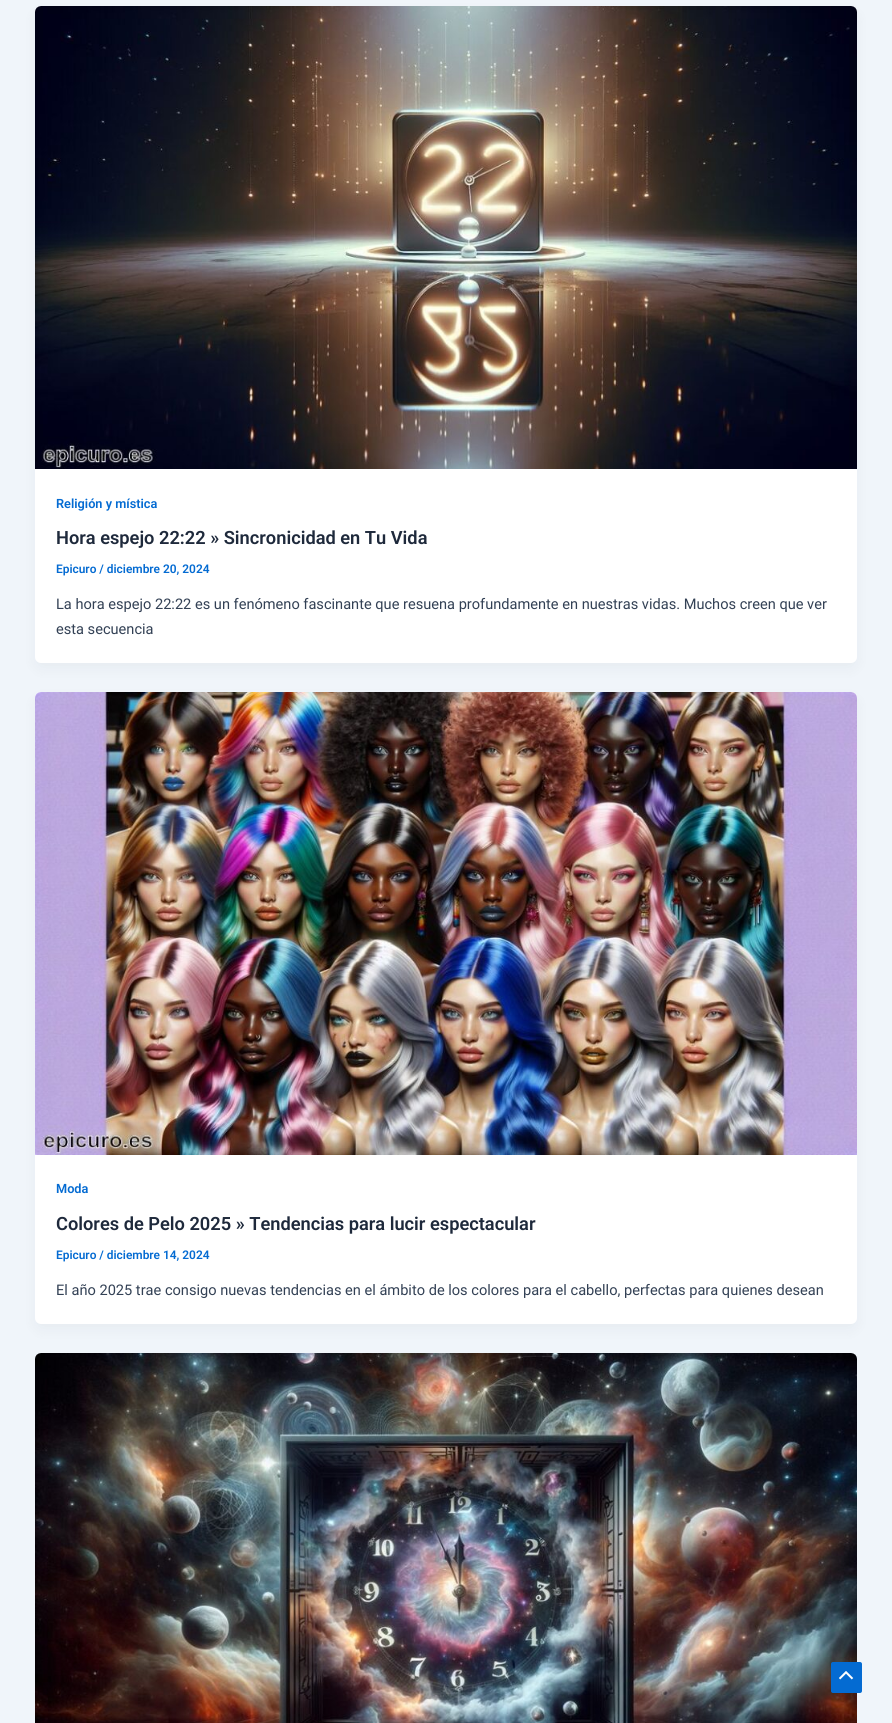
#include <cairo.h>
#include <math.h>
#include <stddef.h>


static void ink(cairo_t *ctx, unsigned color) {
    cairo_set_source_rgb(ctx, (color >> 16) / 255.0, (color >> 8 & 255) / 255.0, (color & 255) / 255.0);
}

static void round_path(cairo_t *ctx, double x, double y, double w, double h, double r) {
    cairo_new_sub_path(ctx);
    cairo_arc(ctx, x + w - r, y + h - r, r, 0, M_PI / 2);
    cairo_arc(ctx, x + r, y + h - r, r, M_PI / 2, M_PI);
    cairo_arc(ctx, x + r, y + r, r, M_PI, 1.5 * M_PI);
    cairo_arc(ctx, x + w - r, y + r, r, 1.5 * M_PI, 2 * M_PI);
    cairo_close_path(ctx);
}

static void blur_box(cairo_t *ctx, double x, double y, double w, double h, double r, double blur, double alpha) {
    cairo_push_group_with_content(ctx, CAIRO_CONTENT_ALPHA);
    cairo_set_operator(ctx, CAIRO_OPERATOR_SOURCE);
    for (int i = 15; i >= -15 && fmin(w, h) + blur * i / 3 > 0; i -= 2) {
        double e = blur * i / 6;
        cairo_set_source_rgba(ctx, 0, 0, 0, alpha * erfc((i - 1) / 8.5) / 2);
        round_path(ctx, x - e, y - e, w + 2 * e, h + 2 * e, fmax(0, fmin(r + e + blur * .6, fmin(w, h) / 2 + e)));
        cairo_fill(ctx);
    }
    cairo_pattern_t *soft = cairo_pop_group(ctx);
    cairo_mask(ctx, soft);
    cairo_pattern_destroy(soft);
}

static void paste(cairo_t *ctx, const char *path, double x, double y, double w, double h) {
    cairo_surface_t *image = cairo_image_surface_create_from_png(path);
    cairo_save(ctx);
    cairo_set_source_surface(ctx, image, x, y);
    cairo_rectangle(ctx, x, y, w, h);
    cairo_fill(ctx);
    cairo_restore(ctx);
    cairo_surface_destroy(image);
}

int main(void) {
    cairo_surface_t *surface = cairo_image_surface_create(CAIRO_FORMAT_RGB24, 892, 1723);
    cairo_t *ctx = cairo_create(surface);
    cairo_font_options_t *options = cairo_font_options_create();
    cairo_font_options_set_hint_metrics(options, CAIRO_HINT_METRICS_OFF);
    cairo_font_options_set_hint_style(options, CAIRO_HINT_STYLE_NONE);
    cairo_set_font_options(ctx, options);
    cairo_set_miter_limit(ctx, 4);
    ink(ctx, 0xF0F5FA);
    cairo_paint(ctx);
    ink(ctx, 0x101828);
    blur_box(ctx, 37, 14, 818, 653, 4, 7.5, 0.05);
    ink(ctx, 0xFFFFFF);
    round_path(ctx, 35, 6, 822, 657, 6);
    cairo_fill(ctx);
    paste(ctx, "media/1.png", 35, 6, 822, 463);
    cairo_select_font_face(ctx, "Roboto SemiBold", CAIRO_FONT_SLANT_NORMAL, CAIRO_FONT_WEIGHT_NORMAL);
    cairo_set_font_size(ctx, 12.75);
    ink(ctx, 0x046BD2);
    cairo_move_to(ctx, 56, 508);
    cairo_show_text(ctx, "Religión y mística");
    cairo_set_font_size(ctx, 18.25);
    ink(ctx, 0x1E293B);
    cairo_move_to(ctx, 56, 544);
    cairo_show_text(ctx, "Hora espejo 22:22 » Sincronicidad en Tu Vida");
    cairo_set_font_size(ctx, 11.9);
    ink(ctx, 0x046BD2);
    cairo_move_to(ctx, 56, 573);
    cairo_show_text(ctx, "Epicuro / diciembre 20, 2024");
    cairo_select_font_face(ctx, "Roboto", CAIRO_FONT_SLANT_NORMAL, CAIRO_FONT_WEIGHT_NORMAL);
    cairo_set_font_size(ctx, 14.6);
    ink(ctx, 0x334155);
    cairo_move_to(ctx, 56, 609);
    cairo_show_text(ctx, "La hora espejo 22:22 es un fenómeno fascinante que resuena profundamente en nuestras vidas. Muchos creen que ver");
    cairo_move_to(ctx, 56, 634);
    cairo_show_text(ctx, "esta secuencia");
    ink(ctx, 0x101828);
    blur_box(ctx, 37, 700, 818, 628, 4, 7.5, 0.05);
    ink(ctx, 0xFFFFFF);
    round_path(ctx, 35, 692, 822, 632, 6);
    cairo_fill(ctx);
    paste(ctx, "media/2.png", 35, 692, 822, 463);
    cairo_select_font_face(ctx, "Roboto SemiBold", CAIRO_FONT_SLANT_NORMAL, CAIRO_FONT_WEIGHT_NORMAL);
    cairo_set_font_size(ctx, 12.75);
    ink(ctx, 0x046BD2);
    cairo_move_to(ctx, 56, 1193);
    cairo_show_text(ctx, "Moda");
    cairo_set_font_size(ctx, 18.25);
    ink(ctx, 0x1E293B);
    cairo_move_to(ctx, 56, 1230);
    cairo_show_text(ctx, "Colores de Pelo 2025 » Tendencias para lucir espectacular");
    cairo_set_font_size(ctx, 11.9);
    ink(ctx, 0x046BD2);
    cairo_move_to(ctx, 56, 1259);
    cairo_show_text(ctx, "Epicuro / diciembre 14, 2024");
    cairo_select_font_face(ctx, "Roboto", CAIRO_FONT_SLANT_NORMAL, CAIRO_FONT_WEIGHT_NORMAL);
    cairo_set_font_size(ctx, 14.6);
    ink(ctx, 0x334155);
    cairo_move_to(ctx, 56, 1295);
    cairo_show_text(ctx, "El año 2025 trae consigo nuevas tendencias en el ámbito de los colores para el cabello, perfectas para quienes desean");
    paste(ctx, "media/3.png", 35, 1353, 822, 370);
    ink(ctx, 0x046BD2);
    round_path(ctx, 831, 1662, 31, 31, 2);
    cairo_fill(ctx);
    paste(ctx, "media/4.png", 839, 1671, 15, 9);
    cairo_surface_write_to_png(surface, "image.png");
    cairo_font_options_destroy(options);
    cairo_destroy(ctx);
    cairo_surface_destroy(surface);
    return 0;
}
